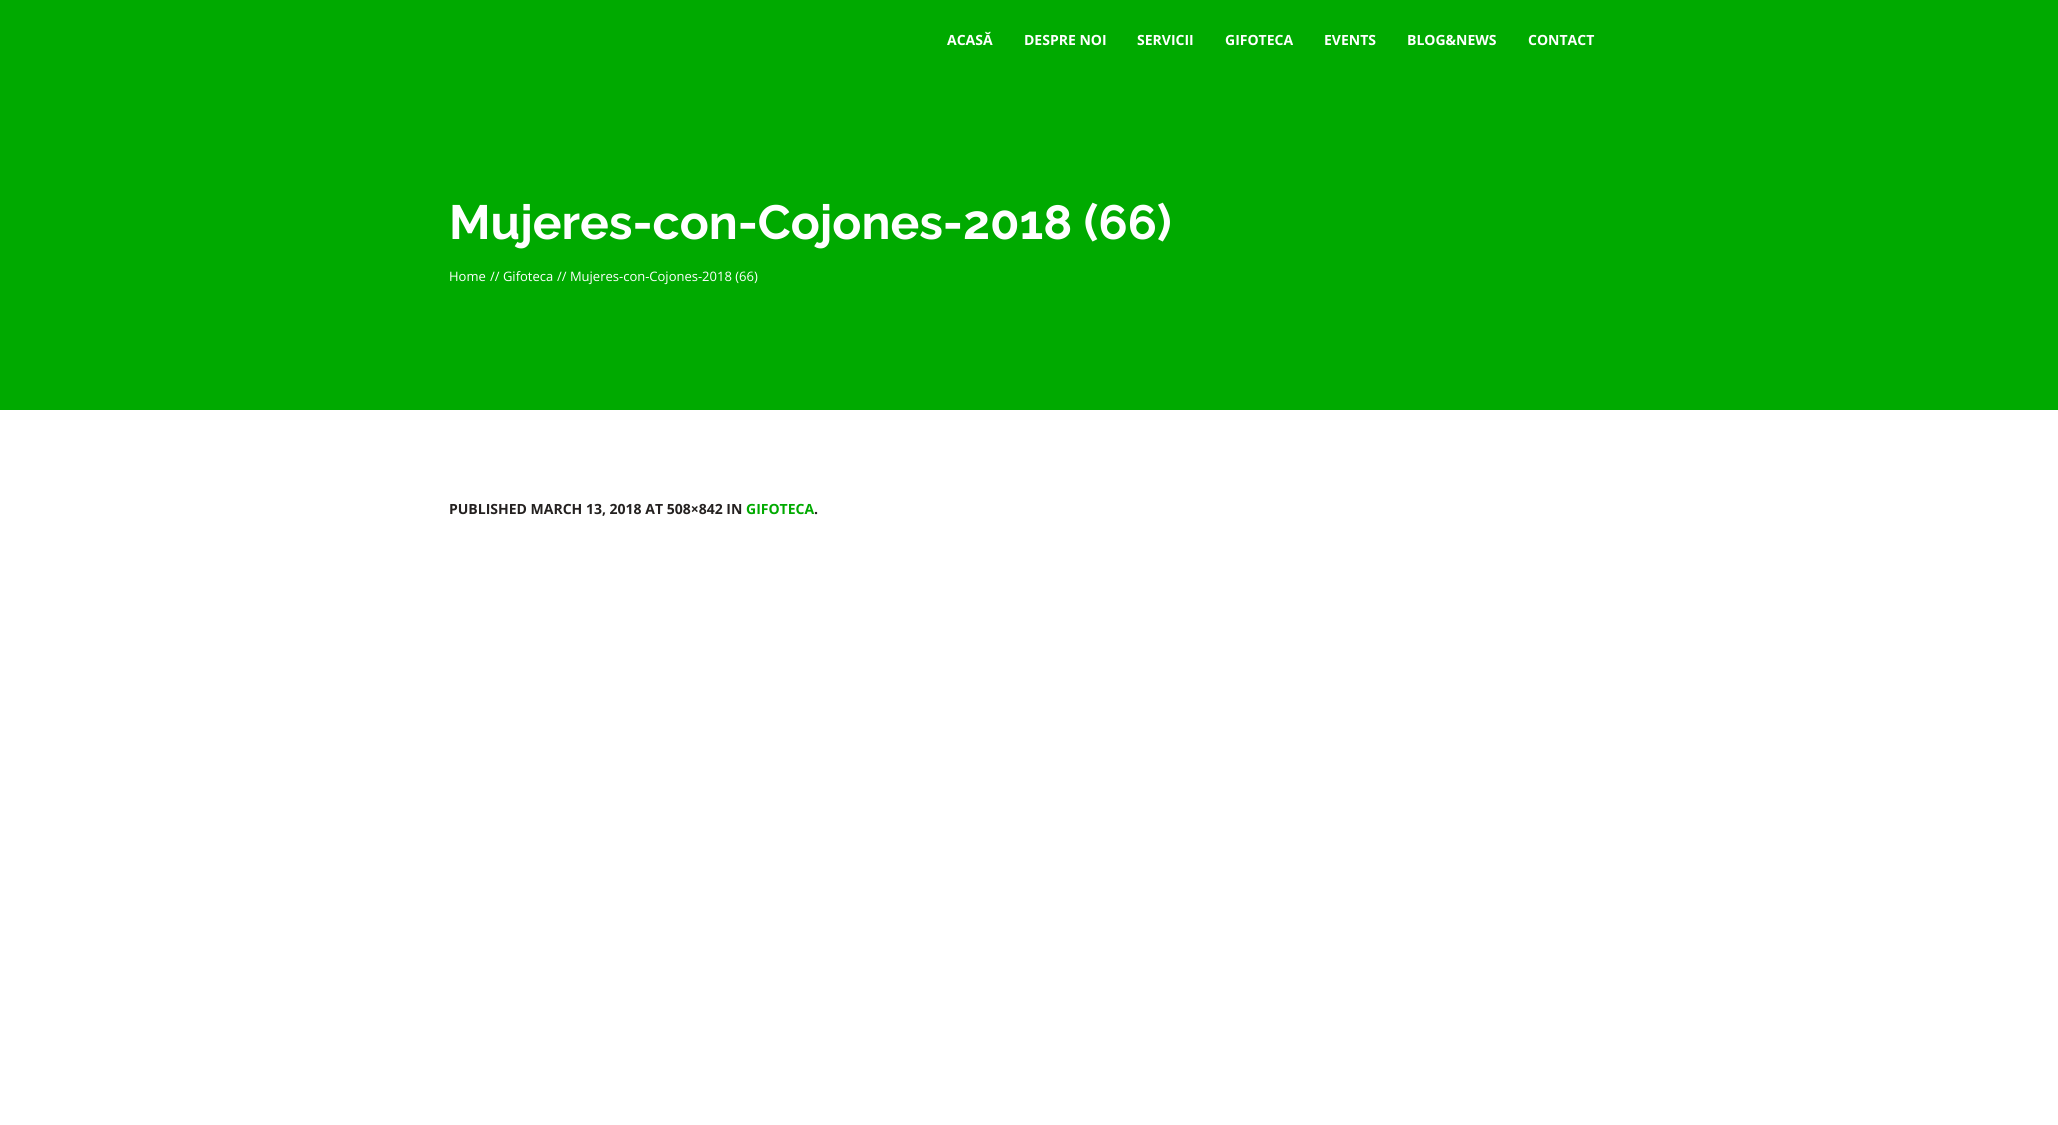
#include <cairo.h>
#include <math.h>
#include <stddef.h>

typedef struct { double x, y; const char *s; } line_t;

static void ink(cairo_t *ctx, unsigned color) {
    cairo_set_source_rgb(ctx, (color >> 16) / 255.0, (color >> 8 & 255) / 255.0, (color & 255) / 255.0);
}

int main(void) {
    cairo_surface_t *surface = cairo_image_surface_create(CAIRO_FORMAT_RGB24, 2058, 1125);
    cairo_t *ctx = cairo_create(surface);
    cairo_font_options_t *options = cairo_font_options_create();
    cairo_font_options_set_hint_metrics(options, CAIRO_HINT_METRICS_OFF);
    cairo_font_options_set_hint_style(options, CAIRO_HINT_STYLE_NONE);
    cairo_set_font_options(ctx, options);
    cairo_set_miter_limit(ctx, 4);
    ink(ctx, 0xFFFFFF);
    cairo_paint(ctx);
    ink(ctx, 0x00AA00);
    cairo_rectangle(ctx, 0, 0, 2058, 410);
    cairo_fill(ctx);
    cairo_select_font_face(ctx, "Open Sans", CAIRO_FONT_SLANT_NORMAL, CAIRO_FONT_WEIGHT_BOLD);
    cairo_set_font_size(ctx, 14);
    ink(ctx, 0xFFFFFF);
    {
        static const line_t items[] = {
            {947, 45, "ACASĂ"},
            {1024, 45, "DESPRE NOI"},
            {1137, 45, "SERVICII"},
            {1225, 45, "GIFOTECA"},
            {1324, 45, "EVENTS"},
            {1407, 45, "BLOG&NEWS"},
            {1528, 45, "CONTACT"},
        };
        for (size_t i = 0; i < sizeof items / sizeof *items; i++) {
            cairo_move_to(ctx, items[i].x, items[i].y);
            cairo_show_text(ctx, items[i].s);
        }
    }
    cairo_select_font_face(ctx, "Raleway", CAIRO_FONT_SLANT_NORMAL, CAIRO_FONT_WEIGHT_BOLD);
    cairo_set_font_size(ctx, 48);
    cairo_move_to(ctx, 449, 239);
    cairo_show_text(ctx, "Mujeres-con-Cojones-2018 (66)");
    cairo_select_font_face(ctx, "Open Sans", CAIRO_FONT_SLANT_NORMAL, CAIRO_FONT_WEIGHT_NORMAL);
    cairo_set_font_size(ctx, 13);
    {
        static const line_t items[] = {
            {449, 281, "Home"},
            {490, 281, "// Gifoteca"},
            {557, 281, "// Mujeres-con-Cojones-2018 (66)"},
        };
        for (size_t i = 0; i < sizeof items / sizeof *items; i++) {
            cairo_move_to(ctx, items[i].x, items[i].y);
            cairo_show_text(ctx, items[i].s);
        }
    }
    cairo_select_font_face(ctx, "Open Sans", CAIRO_FONT_SLANT_NORMAL, CAIRO_FONT_WEIGHT_BOLD);
    cairo_set_font_size(ctx, 14);
    ink(ctx, 0x242120);
    cairo_move_to(ctx, 449, 514);
    cairo_show_text(ctx, "PUBLISHED MARCH 13, 2018 AT 508×842 IN");
    ink(ctx, 0x00AA00);
    cairo_move_to(ctx, 746, 514);
    cairo_show_text(ctx, "GIFOTECA");
    ink(ctx, 0x242120);
    cairo_move_to(ctx, 814, 514);
    cairo_show_text(ctx, ".");
    cairo_surface_write_to_png(surface, "image.png");
    cairo_font_options_destroy(options);
    cairo_destroy(ctx);
    cairo_surface_destroy(surface);
    return 0;
}
